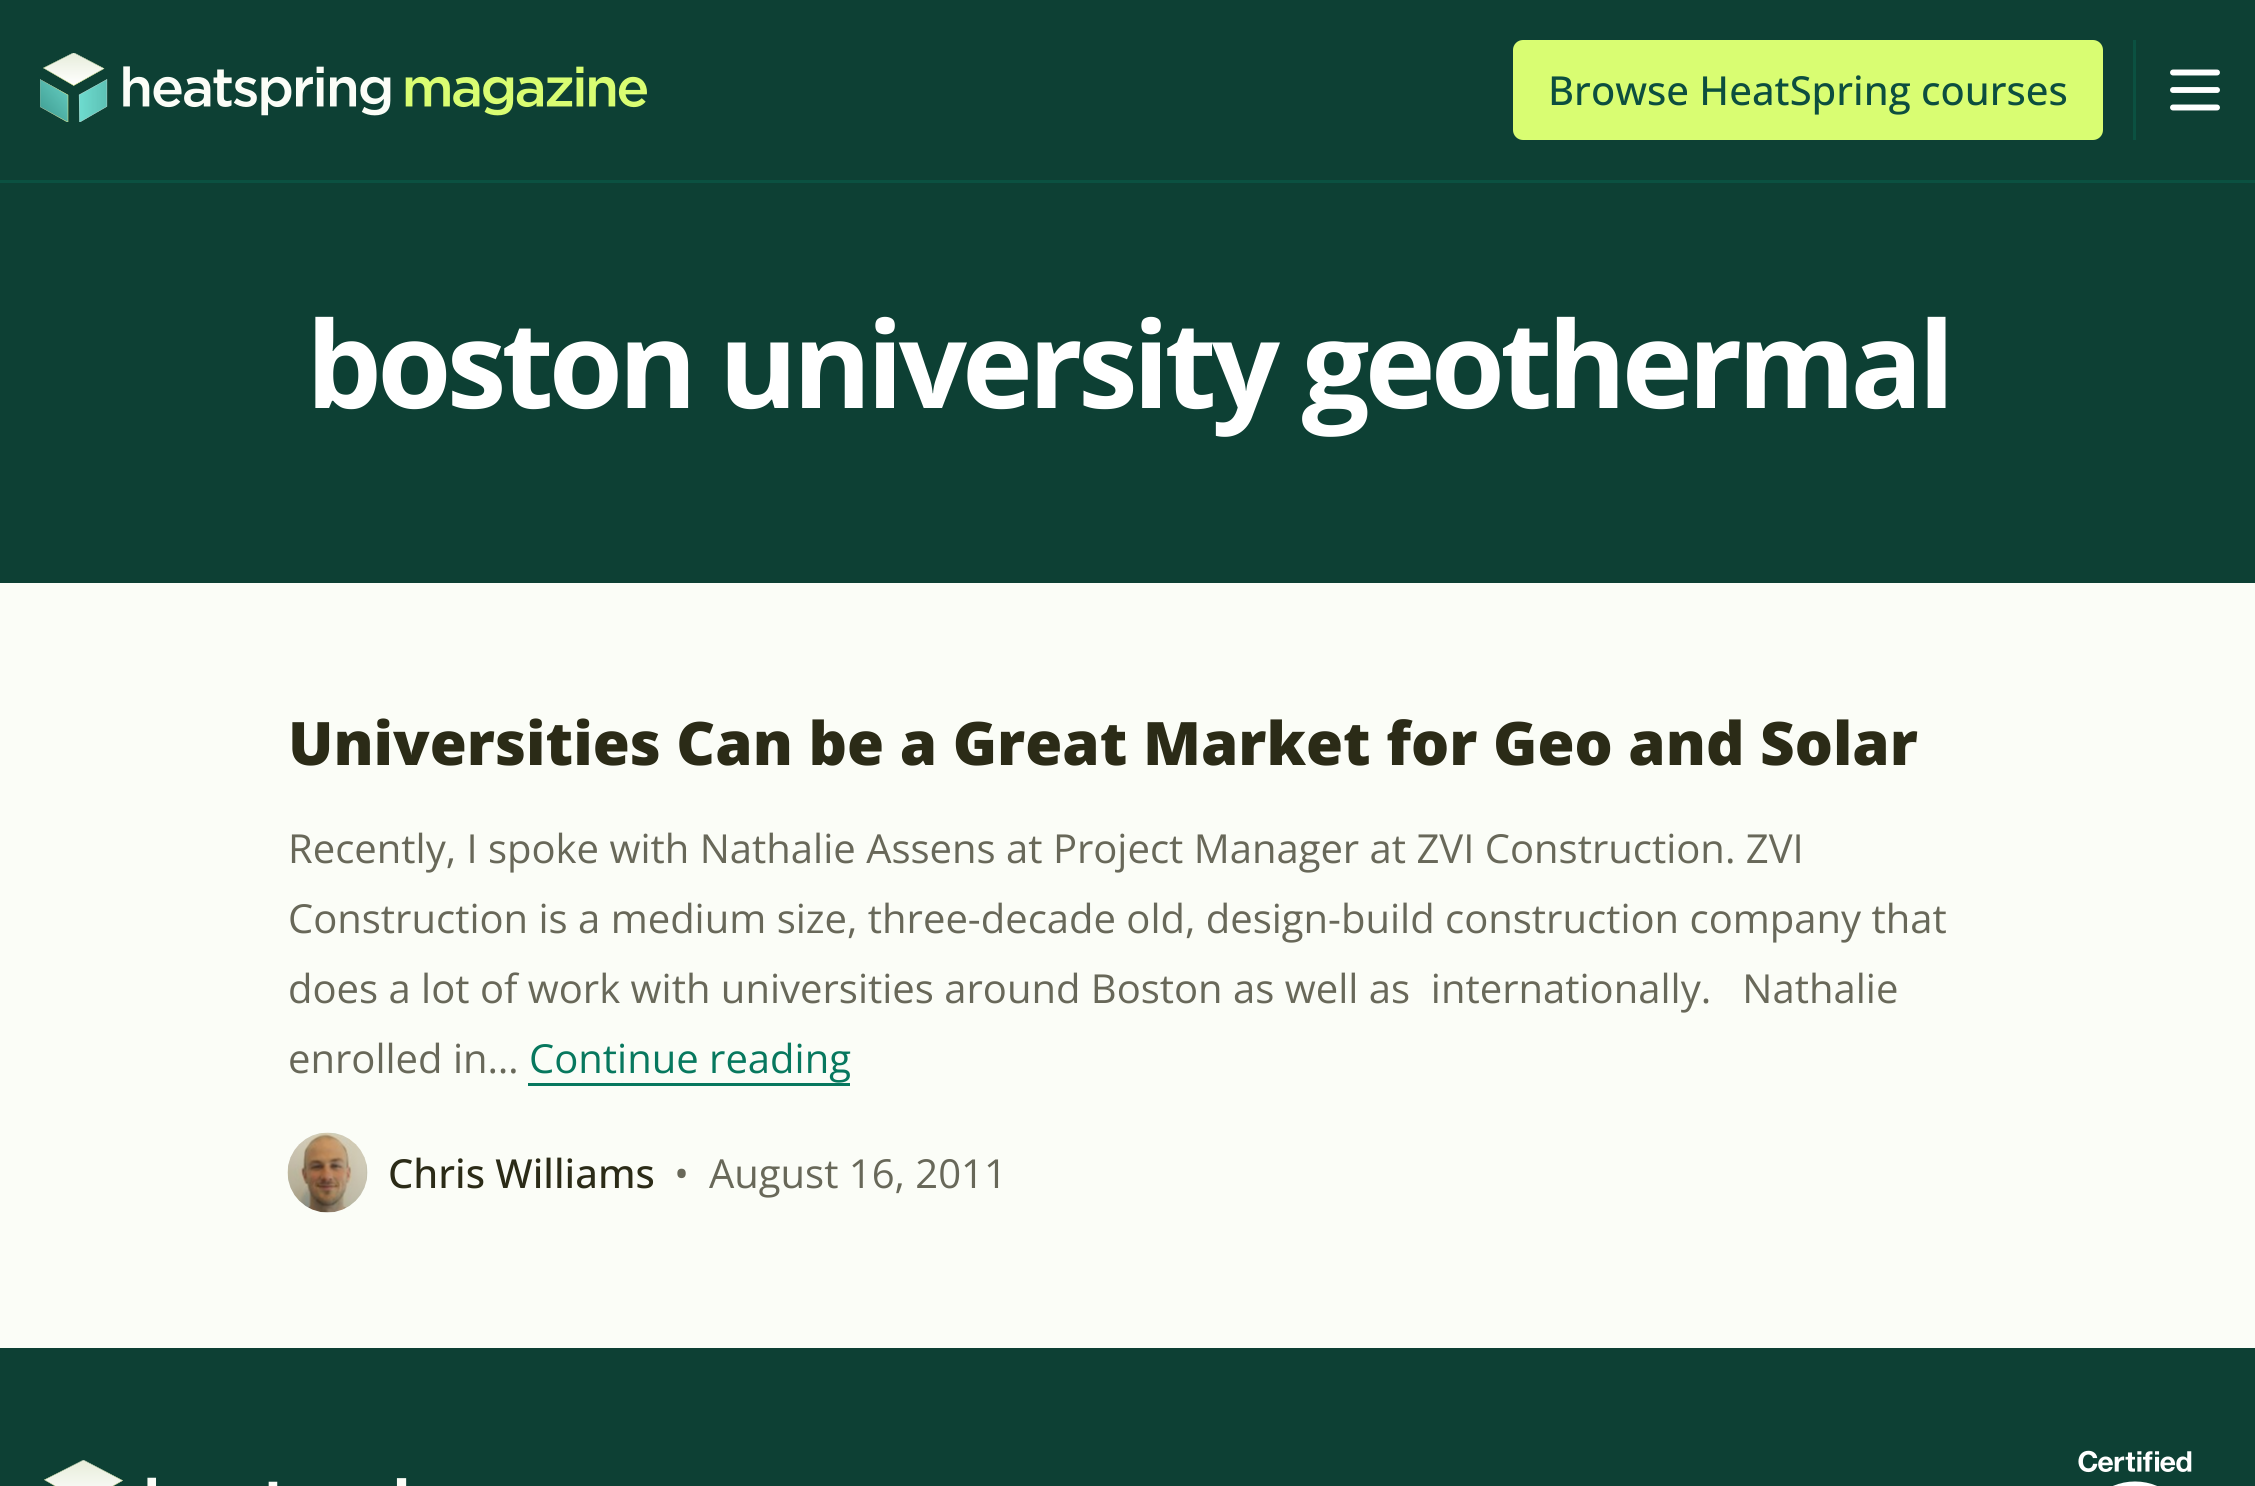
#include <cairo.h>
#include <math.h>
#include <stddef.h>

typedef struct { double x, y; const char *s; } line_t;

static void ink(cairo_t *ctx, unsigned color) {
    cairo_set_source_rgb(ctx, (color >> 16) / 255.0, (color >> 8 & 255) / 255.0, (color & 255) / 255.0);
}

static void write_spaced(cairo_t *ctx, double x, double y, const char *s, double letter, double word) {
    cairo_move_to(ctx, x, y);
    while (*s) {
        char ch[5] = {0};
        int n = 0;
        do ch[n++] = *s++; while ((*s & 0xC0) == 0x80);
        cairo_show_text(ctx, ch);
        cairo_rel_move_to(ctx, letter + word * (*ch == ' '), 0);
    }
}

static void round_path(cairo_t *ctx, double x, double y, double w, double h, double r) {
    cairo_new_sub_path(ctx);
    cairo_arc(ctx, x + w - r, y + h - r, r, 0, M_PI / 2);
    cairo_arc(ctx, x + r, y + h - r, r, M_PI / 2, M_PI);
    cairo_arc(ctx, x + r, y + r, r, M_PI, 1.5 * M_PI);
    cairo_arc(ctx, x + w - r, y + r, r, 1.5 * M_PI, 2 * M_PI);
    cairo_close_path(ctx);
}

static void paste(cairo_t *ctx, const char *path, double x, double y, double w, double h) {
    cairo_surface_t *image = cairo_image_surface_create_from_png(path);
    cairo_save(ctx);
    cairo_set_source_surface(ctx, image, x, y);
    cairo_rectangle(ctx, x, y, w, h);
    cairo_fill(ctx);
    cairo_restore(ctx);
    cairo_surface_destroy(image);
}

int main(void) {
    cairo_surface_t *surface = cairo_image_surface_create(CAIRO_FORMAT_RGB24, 2255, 1486);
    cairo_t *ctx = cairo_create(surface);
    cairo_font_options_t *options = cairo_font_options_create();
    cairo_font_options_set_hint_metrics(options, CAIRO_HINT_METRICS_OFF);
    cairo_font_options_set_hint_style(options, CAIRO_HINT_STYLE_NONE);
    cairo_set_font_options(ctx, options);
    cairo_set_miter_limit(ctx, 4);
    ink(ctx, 0xFBFDF7);
    cairo_paint(ctx);
    ink(ctx, 0x0D4034);
    cairo_rectangle(ctx, 0, 0, 2255, 583);
    cairo_fill(ctx);
    ink(ctx, 0x0B5141);
    cairo_rectangle(ctx, 0, 180, 2255, 3);
    cairo_fill(ctx);
    paste(ctx, "media/1.png", 40, 53, 607, 69);
    ink(ctx, 0xD9FD72);
    round_path(ctx, 1513, 40, 590, 100, 10);
    cairo_fill(ctx);
    cairo_select_font_face(ctx, "Open Sans Medium", CAIRO_FONT_SLANT_NORMAL, CAIRO_FONT_WEIGHT_NORMAL);
    cairo_set_font_size(ctx, 40);
    ink(ctx, 0x0C4E3F);
    cairo_move_to(ctx, 1548, 105);
    cairo_show_text(ctx, "Browse HeatSpring courses");
    ink(ctx, 0x0B5141);
    cairo_rectangle(ctx, 2133, 40, 3, 100);
    cairo_fill(ctx);
    cairo_new_path(ctx);
    cairo_move_to(ctx, 2173, 72.5);
    cairo_line_to(ctx, 2217, 72.5);
    cairo_move_to(ctx, 2173, 90);
    cairo_line_to(ctx, 2217, 90);
    cairo_move_to(ctx, 2173, 107.5);
    cairo_line_to(ctx, 2217, 107.5);
    ink(ctx, 0xFFFFFF);
    cairo_set_line_width(ctx, 5.9);
    cairo_set_line_cap(ctx, CAIRO_LINE_CAP_ROUND);
    cairo_set_line_join(ctx, CAIRO_LINE_JOIN_ROUND);
    cairo_stroke(ctx);
    cairo_select_font_face(ctx, "Open Sans", CAIRO_FONT_SLANT_NORMAL, CAIRO_FONT_WEIGHT_BOLD);
    cairo_set_font_size(ctx, 120);
    write_spaced(ctx, 306, 408, "boston university geothermal", -4.8, 0);
    cairo_select_font_face(ctx, "Open Sans ExtraBold", CAIRO_FONT_SLANT_NORMAL, CAIRO_FONT_WEIGHT_NORMAL);
    cairo_set_font_size(ctx, 60);
    ink(ctx, 0x2B2B17);
    cairo_move_to(ctx, 288, 765);
    cairo_show_text(ctx, "Universities Can be a Great Market for Geo and Solar");
    cairo_select_font_face(ctx, "Open Sans", CAIRO_FONT_SLANT_NORMAL, CAIRO_FONT_WEIGHT_NORMAL);
    cairo_set_font_size(ctx, 40);
    ink(ctx, 0x686859);
    {
        static const line_t items[] = {
            {288, 863, "Recently, I spoke with Nathalie Assens at Project Manager at ZVI Construction. ZVI"},
            {288, 933, "Construction is a medium size, three-decade old, design-build construction company that"},
            {288, 1003, "does a lot of work with universities around Boston as well as  internationally.   Nathalie"},
            {288, 1073, "enrolled in…"},
        };
        for (size_t i = 0; i < sizeof items / sizeof *items; i++) {
            cairo_move_to(ctx, items[i].x, items[i].y);
            cairo_show_text(ctx, items[i].s);
        }
    }
    ink(ctx, 0x07785E);
    cairo_move_to(ctx, 529, 1073);
    cairo_show_text(ctx, "Continue reading");
    cairo_rectangle(ctx, 528, 1083, 322, 3);
    cairo_fill(ctx);
    paste(ctx, "media/2.png", 287, 1132, 81, 81);
    cairo_select_font_face(ctx, "Open Sans Medium", CAIRO_FONT_SLANT_NORMAL, CAIRO_FONT_WEIGHT_NORMAL);
    ink(ctx, 0x2B2B17);
    cairo_move_to(ctx, 388, 1188);
    cairo_show_text(ctx, "Chris Williams");
    cairo_select_font_face(ctx, "Open Sans", CAIRO_FONT_SLANT_NORMAL, CAIRO_FONT_WEIGHT_NORMAL);
    ink(ctx, 0x686859);
    cairo_move_to(ctx, 674, 1188);
    cairo_show_text(ctx, "•");
    cairo_move_to(ctx, 709, 1188);
    cairo_show_text(ctx, "August 16, 2011");
    ink(ctx, 0x0D4034);
    cairo_rectangle(ctx, 0, 1348, 2255, 138);
    cairo_fill(ctx);
    paste(ctx, "media/3.png", 44, 1460, 363, 26);
    paste(ctx, "media/4.png", 2078, 1450, 114, 36);
    cairo_surface_write_to_png(surface, "image.png");
    cairo_font_options_destroy(options);
    cairo_destroy(ctx);
    cairo_surface_destroy(surface);
    return 0;
}
